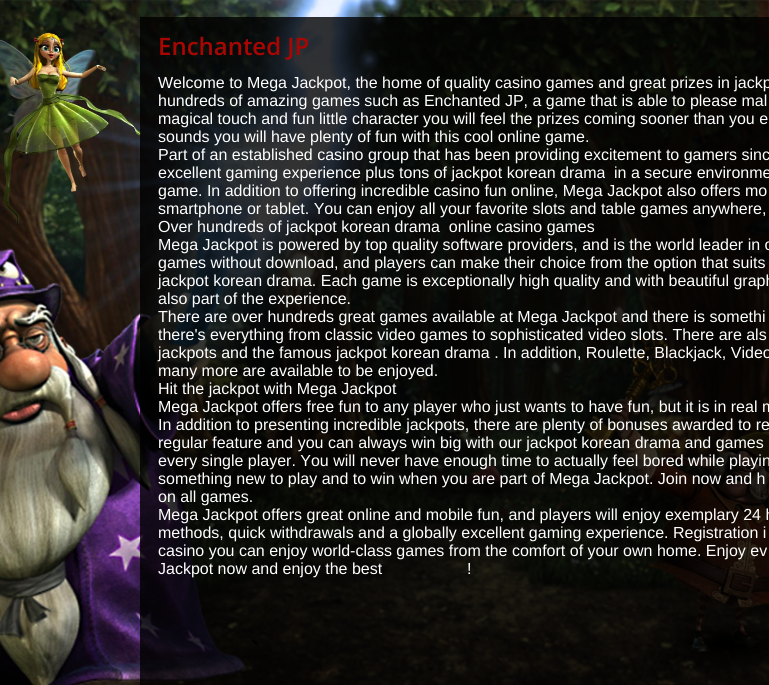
#include <cairo.h>
#include <math.h>
#include <stddef.h>

typedef struct { double x, y; const char *s; } line_t;

static void ink(cairo_t *ctx, unsigned color) {
    cairo_set_source_rgb(ctx, (color >> 16) / 255.0, (color >> 8 & 255) / 255.0, (color & 255) / 255.0);
}

static void paste(cairo_t *ctx, const char *path, double x, double y, double w, double h) {
    cairo_surface_t *image = cairo_image_surface_create_from_png(path);
    cairo_save(ctx);
    cairo_set_source_surface(ctx, image, x, y);
    cairo_rectangle(ctx, x, y, w, h);
    cairo_fill(ctx);
    cairo_restore(ctx);
    cairo_surface_destroy(image);
}

int main(void) {
    cairo_surface_t *surface = cairo_image_surface_create(CAIRO_FORMAT_RGB24, 769, 685);
    cairo_t *ctx = cairo_create(surface);
    cairo_font_options_t *options = cairo_font_options_create();
    cairo_font_options_set_hint_metrics(options, CAIRO_HINT_METRICS_OFF);
    cairo_font_options_set_hint_style(options, CAIRO_HINT_STYLE_NONE);
    cairo_set_font_options(ctx, options);
    cairo_set_miter_limit(ctx, 4);
    ink(ctx, 0xFFFFFF);
    cairo_paint(ctx);
    paste(ctx, "media/1.png", 0, 0, 769, 685);
    cairo_set_source_rgba(ctx, 0, 0, 0, 0.8);
    cairo_rectangle(ctx, 140, 17, 629, 668);
    cairo_fill(ctx);
    cairo_select_font_face(ctx, "Open Sans SemiBold", CAIRO_FONT_SLANT_NORMAL, CAIRO_FONT_WEIGHT_NORMAL);
    cairo_set_font_size(ctx, 24);
    ink(ctx, 0xA80602);
    cairo_move_to(ctx, 158, 55);
    cairo_show_text(ctx, "Enchanted JP");
    cairo_select_font_face(ctx, "Liberation Sans", CAIRO_FONT_SLANT_NORMAL, CAIRO_FONT_WEIGHT_NORMAL);
    cairo_set_font_size(ctx, 16);
    ink(ctx, 0xFFFFFF);
    {
        static const line_t items[] = {
            {158, 88, "Welcome to Mega Jackpot, the home of quality casino games and great prizes in jackp"},
            {158, 106, "hundreds of amazing games such as Enchanted JP, a game that is able to please mal"},
            {158, 124, "magical touch and fun little character you will feel the prizes coming sooner than you e"},
            {158, 142, "sounds you will have plenty of fun with this cool online game."},
            {158, 160, "Part of an established casino group that has been providing excitement to gamers sinc"},
            {158, 178, "excellent gaming experience plus tons of jackpot korean drama"},
            {614, 178, "in a secure environme"},
            {158, 196, "game. In addition to offering incredible casino fun online, Mega Jackpot also offers mo"},
            {158, 214, "smartphone or tablet. You can enjoy all your favorite slots and table games anywhere,"},
            {158, 232, "Over hundreds of jackpot korean drama  online casino games"},
            {158, 250, "Mega Jackpot is powered by top quality software providers, and is the world leader in o"},
            {158, 268, "games without download, and players can make their choice from the option that suits"},
            {158, 286, "jackpot korean drama. Each game is exceptionally high quality and with beautiful graph"},
            {158, 304, "also part of the experience."},
            {158, 322, "There are over hundreds great games available at Mega Jackpot and there is somethi"},
            {158, 340, "there's everything from classic video games to sophisticated video slots. There are als"},
            {158, 358, "jackpots and the famous jackpot korean drama . In addition, Roulette, Blackjack, Video"},
            {158, 376, "many more are available to be enjoyed."},
            {158, 394, "Hit the jackpot with Mega Jackpot"},
            {158, 412, "Mega Jackpot offers free fun to any player who just wants to have fun, but it is in real m"},
            {158, 430, "In addition to presenting incredible jackpots, there are plenty of bonuses awarded to re"},
            {158, 448, "regular feature and you can always win big with our jackpot korean drama and games"},
            {158, 466, "every single player. You will never have enough time to actually feel bored while playin"},
            {158, 484, "something new to play and to win when you are part of Mega Jackpot. Join now and h"},
            {158, 502, "on all games."},
            {158, 520, "Mega Jackpot offers great online and mobile fun, and players will enjoy exemplary 24 h"},
            {158, 538, "methods, quick withdrawals and a globally excellent gaming experience. Registration i"},
            {158, 556, "casino you can enjoy world-class games from the comfort of your own home. Enjoy ev"},
            {158, 574, "Jackpot now and enjoy the best"},
            {467, 574, "!"},
        };
        for (size_t i = 0; i < sizeof items / sizeof *items; i++) {
            cairo_move_to(ctx, items[i].x, items[i].y);
            cairo_show_text(ctx, items[i].s);
        }
    }
    cairo_surface_write_to_png(surface, "image.png");
    cairo_font_options_destroy(options);
    cairo_destroy(ctx);
    cairo_surface_destroy(surface);
    return 0;
}
